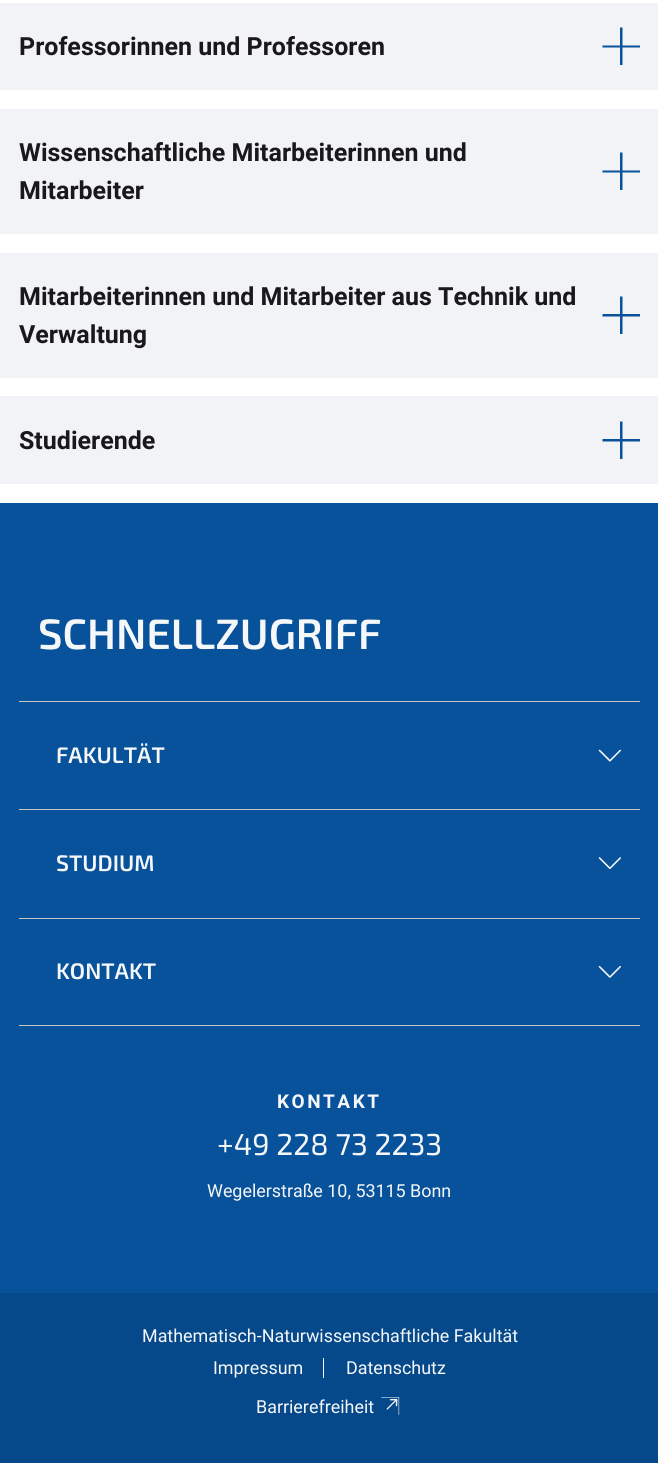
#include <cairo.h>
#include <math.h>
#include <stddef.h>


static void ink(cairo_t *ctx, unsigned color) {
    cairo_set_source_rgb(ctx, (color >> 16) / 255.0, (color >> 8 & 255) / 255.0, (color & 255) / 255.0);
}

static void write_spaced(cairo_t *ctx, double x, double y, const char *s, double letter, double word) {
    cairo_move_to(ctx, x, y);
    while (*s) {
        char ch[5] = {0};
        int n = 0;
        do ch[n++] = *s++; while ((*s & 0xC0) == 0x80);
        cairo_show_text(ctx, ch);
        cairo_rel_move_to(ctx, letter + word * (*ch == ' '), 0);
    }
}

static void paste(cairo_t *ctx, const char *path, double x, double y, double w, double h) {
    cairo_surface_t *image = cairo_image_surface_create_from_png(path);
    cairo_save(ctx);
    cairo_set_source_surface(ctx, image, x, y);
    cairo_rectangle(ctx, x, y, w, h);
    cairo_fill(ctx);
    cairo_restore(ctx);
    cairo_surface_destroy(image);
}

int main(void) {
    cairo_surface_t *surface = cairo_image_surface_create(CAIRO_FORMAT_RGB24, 658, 1463);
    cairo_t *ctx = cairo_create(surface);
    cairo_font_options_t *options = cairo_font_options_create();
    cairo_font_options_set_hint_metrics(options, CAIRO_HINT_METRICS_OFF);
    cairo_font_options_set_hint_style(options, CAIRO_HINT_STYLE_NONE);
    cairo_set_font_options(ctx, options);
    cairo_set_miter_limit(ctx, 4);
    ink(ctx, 0xFFFFFF);
    cairo_paint(ctx);
    ink(ctx, 0xF1F3F6);
    cairo_rectangle(ctx, 0, 3, 658, 87);
    cairo_fill(ctx);
    cairo_select_font_face(ctx, "Roboto", CAIRO_FONT_SLANT_NORMAL, CAIRO_FONT_WEIGHT_BOLD);
    cairo_set_font_size(ctx, 25);
    ink(ctx, 0x1A181B);
    cairo_move_to(ctx, 19, 55);
    cairo_show_text(ctx, "Professorinnen und Professoren");
    ink(ctx, 0x07529A);
    cairo_new_path(ctx);
    cairo_move_to(ctx, 640, 45.5);
    cairo_line_to(ctx, 622.5, 45.5);
    cairo_line_to(ctx, 622.5, 27.5);
    cairo_line_to(ctx, 620, 27.5);
    cairo_line_to(ctx, 620, 45.5);
    cairo_line_to(ctx, 602.5, 45.5);
    cairo_line_to(ctx, 602.5, 47.5);
    cairo_line_to(ctx, 620, 47.5);
    cairo_line_to(ctx, 620, 65);
    cairo_line_to(ctx, 622.5, 65);
    cairo_line_to(ctx, 622.5, 47.5);
    cairo_line_to(ctx, 640, 47.5);
    cairo_close_path(ctx);
    cairo_fill(ctx);
    ink(ctx, 0xF1F3F6);
    cairo_rectangle(ctx, 0, 109, 658, 125);
    cairo_fill(ctx);
    ink(ctx, 0x1A181B);
    cairo_move_to(ctx, 19, 161);
    cairo_show_text(ctx, "Wissenschaftliche Mitarbeiterinnen und");
    ink(ctx, 0x07529A);
    cairo_new_path(ctx);
    cairo_move_to(ctx, 640, 170.5);
    cairo_line_to(ctx, 622.5, 170.5);
    cairo_line_to(ctx, 622.5, 152.5);
    cairo_line_to(ctx, 620, 152.5);
    cairo_line_to(ctx, 620, 170.5);
    cairo_line_to(ctx, 602.5, 170.5);
    cairo_line_to(ctx, 602.5, 172.5);
    cairo_line_to(ctx, 620, 172.5);
    cairo_line_to(ctx, 620, 190);
    cairo_line_to(ctx, 622.5, 190);
    cairo_line_to(ctx, 622.5, 172.5);
    cairo_line_to(ctx, 640, 172.5);
    cairo_close_path(ctx);
    cairo_fill(ctx);
    ink(ctx, 0x1A181B);
    cairo_move_to(ctx, 19, 199);
    cairo_show_text(ctx, "Mitarbeiter");
    ink(ctx, 0xF1F3F6);
    cairo_rectangle(ctx, 0, 253, 658, 125);
    cairo_fill(ctx);
    ink(ctx, 0x1A181B);
    cairo_move_to(ctx, 19, 305);
    cairo_show_text(ctx, "Mitarbeiterinnen und Mitarbeiter aus Technik und");
    ink(ctx, 0x07529A);
    cairo_new_path(ctx);
    cairo_move_to(ctx, 640, 314);
    cairo_line_to(ctx, 622.5, 314);
    cairo_line_to(ctx, 622.5, 296.5);
    cairo_line_to(ctx, 620, 296.5);
    cairo_line_to(ctx, 620, 314);
    cairo_line_to(ctx, 602.5, 314);
    cairo_line_to(ctx, 602.5, 316.5);
    cairo_line_to(ctx, 620, 316.5);
    cairo_line_to(ctx, 620, 334);
    cairo_line_to(ctx, 622.5, 334);
    cairo_line_to(ctx, 622.5, 316.5);
    cairo_line_to(ctx, 640, 316.5);
    cairo_close_path(ctx);
    cairo_fill(ctx);
    ink(ctx, 0x1A181B);
    cairo_move_to(ctx, 19, 343);
    cairo_show_text(ctx, "Verwaltung");
    ink(ctx, 0xF1F3F6);
    cairo_rectangle(ctx, 0, 396, 658, 88);
    cairo_fill(ctx);
    ink(ctx, 0x1A181B);
    cairo_move_to(ctx, 19, 449);
    cairo_show_text(ctx, "Studierende");
    ink(ctx, 0x07529A);
    cairo_new_path(ctx);
    cairo_move_to(ctx, 640, 439);
    cairo_line_to(ctx, 622.5, 439);
    cairo_line_to(ctx, 622.5, 421.5);
    cairo_line_to(ctx, 620, 421.5);
    cairo_line_to(ctx, 620, 439);
    cairo_line_to(ctx, 602.5, 439);
    cairo_line_to(ctx, 602.5, 441.5);
    cairo_line_to(ctx, 620, 441.5);
    cairo_line_to(ctx, 620, 459);
    cairo_line_to(ctx, 622.5, 459);
    cairo_line_to(ctx, 622.5, 441.5);
    cairo_line_to(ctx, 640, 441.5);
    cairo_close_path(ctx);
    cairo_fill(ctx);
    cairo_rectangle(ctx, 0, 503, 658, 790);
    cairo_fill(ctx);
    cairo_select_font_face(ctx, "Exo 2 SemiBold", CAIRO_FONT_SLANT_NORMAL, CAIRO_FONT_WEIGHT_NORMAL);
    cairo_set_font_size(ctx, 42.5);
    ink(ctx, 0xF6F7F9);
    cairo_move_to(ctx, 38, 649);
    cairo_show_text(ctx, "SCHNELLZUGRIFF");
    ink(ctx, 0xC6C6C8);
    cairo_rectangle(ctx, 19, 701, 621, 1);
    cairo_fill(ctx);
    cairo_set_font_size(ctx, 22.5);
    ink(ctx, 0xF6F7F9);
    cairo_move_to(ctx, 56, 763);
    cairo_show_text(ctx, "FAKULTÄT");
    paste(ctx, "media/1.png", 598, 749, 23, 13);
    ink(ctx, 0xC6C6C8);
    cairo_rectangle(ctx, 19, 809, 621, 1);
    cairo_fill(ctx);
    ink(ctx, 0xF6F7F9);
    cairo_move_to(ctx, 56, 871);
    cairo_show_text(ctx, "STUDIUM");
    paste(ctx, "media/2.png", 598, 857, 23, 13);
    ink(ctx, 0xC6C6C8);
    cairo_rectangle(ctx, 19, 918, 621, 1);
    cairo_fill(ctx);
    cairo_rectangle(ctx, 19, 1025, 621, 1);
    cairo_fill(ctx);
    ink(ctx, 0xF6F7F9);
    cairo_move_to(ctx, 56, 979);
    cairo_show_text(ctx, "KONTAKT");
    paste(ctx, "media/3.png", 598, 966, 23, 12);
    cairo_select_font_face(ctx, "Roboto", CAIRO_FONT_SLANT_NORMAL, CAIRO_FONT_WEIGHT_BOLD);
    cairo_set_font_size(ctx, 19);
    write_spaced(ctx, 277, 1108, "KONTAKT", 2.5, 0);
    cairo_select_font_face(ctx, "Exo 2", CAIRO_FONT_SLANT_NORMAL, CAIRO_FONT_WEIGHT_NORMAL);
    cairo_set_font_size(ctx, 30.25);
    cairo_move_to(ctx, 217, 1155);
    cairo_show_text(ctx, "+49 228 73 2233");
    cairo_select_font_face(ctx, "Roboto", CAIRO_FONT_SLANT_NORMAL, CAIRO_FONT_WEIGHT_NORMAL);
    cairo_set_font_size(ctx, 17.9);
    cairo_move_to(ctx, 207, 1197);
    cairo_show_text(ctx, "Wegelerstraße 10, 53115 Bonn");
    ink(ctx, 0x06498A);
    cairo_rectangle(ctx, 0, 1293, 658, 170);
    cairo_fill(ctx);
    ink(ctx, 0xF6F7F9);
    cairo_move_to(ctx, 142, 1342);
    cairo_show_text(ctx, "Mathematisch-Naturwissenschaftliche Fakultät");
    cairo_move_to(ctx, 213, 1374);
    cairo_show_text(ctx, "Impressum");
    cairo_rectangle(ctx, 323, 1358, 1, 20);
    cairo_fill(ctx);
    cairo_move_to(ctx, 346, 1374);
    cairo_show_text(ctx, "Datenschutz");
    cairo_move_to(ctx, 256, 1413);
    cairo_show_text(ctx, "Barrierefreiheit");
    paste(ctx, "media/4.png", 381, 1397, 19, 18);
    cairo_surface_write_to_png(surface, "image.png");
    cairo_font_options_destroy(options);
    cairo_destroy(ctx);
    cairo_surface_destroy(surface);
    return 0;
}
